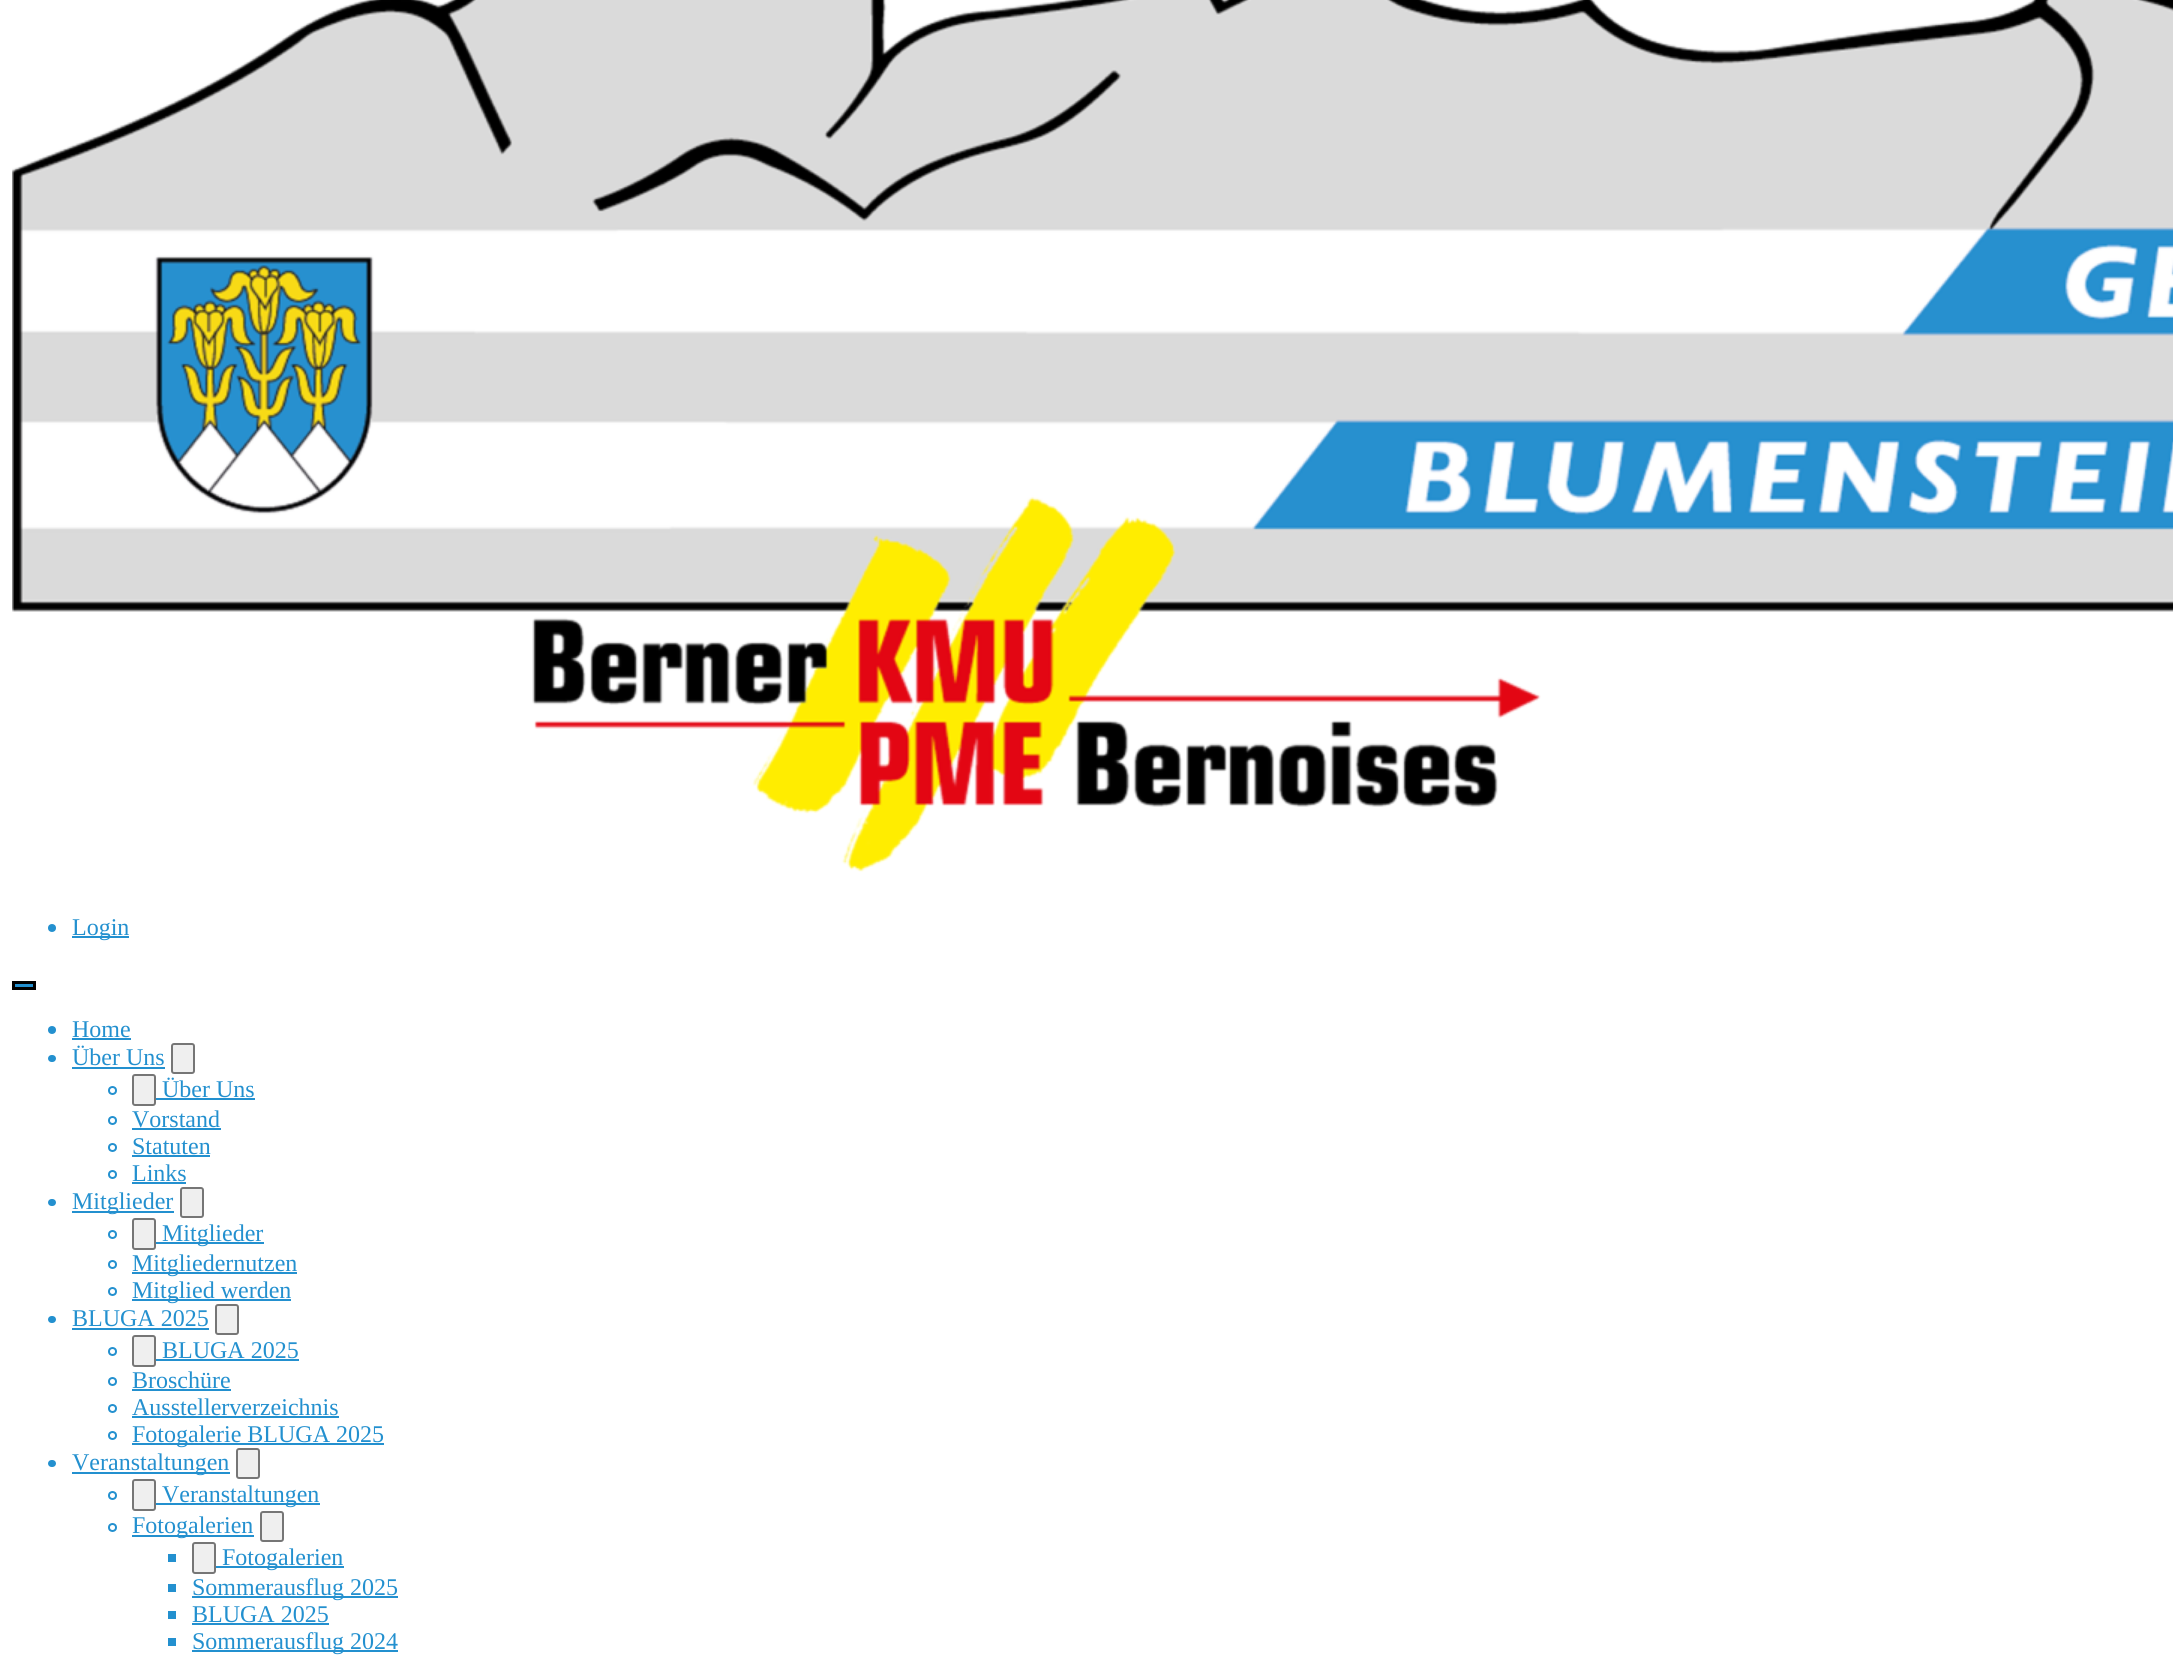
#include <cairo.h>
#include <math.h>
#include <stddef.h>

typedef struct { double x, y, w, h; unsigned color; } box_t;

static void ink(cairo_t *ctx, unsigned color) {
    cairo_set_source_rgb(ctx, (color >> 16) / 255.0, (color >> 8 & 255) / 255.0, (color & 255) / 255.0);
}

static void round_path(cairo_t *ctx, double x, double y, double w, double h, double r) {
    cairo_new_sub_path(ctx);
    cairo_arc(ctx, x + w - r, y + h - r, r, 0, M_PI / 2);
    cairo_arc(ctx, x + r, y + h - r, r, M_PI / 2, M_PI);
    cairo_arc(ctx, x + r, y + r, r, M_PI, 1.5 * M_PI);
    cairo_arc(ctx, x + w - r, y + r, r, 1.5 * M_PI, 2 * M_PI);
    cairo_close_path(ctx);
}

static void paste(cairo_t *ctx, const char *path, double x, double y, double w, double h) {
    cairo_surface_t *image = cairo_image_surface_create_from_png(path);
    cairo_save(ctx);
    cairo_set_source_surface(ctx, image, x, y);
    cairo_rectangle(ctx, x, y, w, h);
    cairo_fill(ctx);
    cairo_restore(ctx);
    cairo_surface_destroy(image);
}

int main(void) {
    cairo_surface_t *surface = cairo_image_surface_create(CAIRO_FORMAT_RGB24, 2173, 1662);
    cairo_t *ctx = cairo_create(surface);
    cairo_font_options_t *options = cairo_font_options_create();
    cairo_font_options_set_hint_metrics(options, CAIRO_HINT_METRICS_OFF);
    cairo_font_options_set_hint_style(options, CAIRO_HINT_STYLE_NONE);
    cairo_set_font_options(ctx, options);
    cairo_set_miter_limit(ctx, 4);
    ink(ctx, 0xFFFFFF);
    cairo_paint(ctx);
    paste(ctx, "media/1.png", 12, 0, 2161, 872);
    ink(ctx, 0x2390CF);
    cairo_arc(ctx, 52, 928, 4, 0, 2 * M_PI);
    cairo_fill(ctx);
    cairo_rectangle(ctx, 72, 936, 57, 2);
    cairo_fill(ctx);
    cairo_select_font_face(ctx, "Liberation Serif", CAIRO_FONT_SLANT_NORMAL, CAIRO_FONT_WEIGHT_NORMAL);
    cairo_set_font_size(ctx, 24);
    cairo_move_to(ctx, 72, 935);
    cairo_show_text(ctx, "Login");
    cairo_rectangle(ctx, 13.5, 982.5, 21, 6);
    cairo_fill_preserve(ctx);
    ink(ctx, 0x000000);
    cairo_set_line_width(ctx, 3);
    cairo_stroke(ctx);
    ink(ctx, 0x2390CF);
    cairo_arc(ctx, 52, 1030, 4, 0, 2 * M_PI);
    cairo_fill(ctx);
    cairo_move_to(ctx, 72, 1037);
    cairo_show_text(ctx, "Home");
    cairo_rectangle(ctx, 72, 1038, 59, 2);
    cairo_fill(ctx);
    round_path(ctx, 48, 1055, 8, 7, 3.5);
    cairo_fill(ctx);
    cairo_move_to(ctx, 72, 1065);
    cairo_show_text(ctx, "Über Uns");
    cairo_rectangle(ctx, 72, 1067, 93, 2);
    cairo_fill(ctx);
    ink(ctx, 0xEFEFEF);
    round_path(ctx, 172, 1044, 22, 29, 2);
    cairo_fill_preserve(ctx);
    ink(ctx, 0x767676);
    cairo_set_line_width(ctx, 2);
    cairo_stroke(ctx);
    cairo_arc(ctx, 112.5, 1090.5, 3.5, 0, 2 * M_PI);
    ink(ctx, 0x2390CF);
    cairo_stroke(ctx);
    ink(ctx, 0xEFEFEF);
    round_path(ctx, 133, 1075, 22, 30, 2);
    cairo_fill_preserve(ctx);
    ink(ctx, 0x767676);
    cairo_stroke(ctx);
    ink(ctx, 0x2390CF);
    cairo_move_to(ctx, 162, 1097);
    cairo_show_text(ctx, "Über Uns");
    cairo_rectangle(ctx, 156, 1098, 99, 2);
    cairo_fill(ctx);
    cairo_arc(ctx, 112.5, 1120.5, 3.5, 0, 2 * M_PI);
    cairo_stroke(ctx);
    cairo_move_to(ctx, 132, 1127);
    cairo_show_text(ctx, "Vorstand");
    cairo_rectangle(ctx, 132, 1128, 89, 2);
    cairo_fill(ctx);
    cairo_arc(ctx, 112.5, 1147.5, 3.5, 0, 2 * M_PI);
    cairo_stroke(ctx);
    cairo_move_to(ctx, 132, 1154);
    cairo_show_text(ctx, "Statuten");
    cairo_rectangle(ctx, 132, 1155, 78, 2);
    cairo_fill(ctx);
    cairo_arc(ctx, 112.5, 1174.5, 3.5, 0, 2 * M_PI);
    cairo_stroke(ctx);
    cairo_move_to(ctx, 132, 1181);
    cairo_show_text(ctx, "Links");
    cairo_rectangle(ctx, 132, 1182, 54, 2);
    cairo_fill(ctx);
    round_path(ctx, 48, 1199, 8, 7, 3.5);
    cairo_fill(ctx);
    cairo_rectangle(ctx, 72, 1211, 102, 2);
    cairo_fill(ctx);
    cairo_move_to(ctx, 72, 1209);
    cairo_show_text(ctx, "Mitglieder");
    ink(ctx, 0xEFEFEF);
    round_path(ctx, 181, 1188, 22, 29, 2);
    cairo_fill_preserve(ctx);
    ink(ctx, 0x767676);
    cairo_stroke(ctx);
    cairo_arc(ctx, 112.5, 1234.5, 3.5, 0, 2 * M_PI);
    ink(ctx, 0x2390CF);
    cairo_stroke(ctx);
    ink(ctx, 0xEFEFEF);
    round_path(ctx, 133, 1219, 22, 30, 2);
    cairo_fill_preserve(ctx);
    ink(ctx, 0x767676);
    cairo_stroke(ctx);
    ink(ctx, 0x2390CF);
    cairo_rectangle(ctx, 156, 1242, 108, 2);
    cairo_fill(ctx);
    cairo_move_to(ctx, 162, 1241);
    cairo_show_text(ctx, "Mitglieder");
    cairo_new_path(ctx);
    cairo_arc(ctx, 112.5, 1264.5, 3.5, 0, 2 * M_PI);
    cairo_stroke(ctx);
    cairo_rectangle(ctx, 132, 1272, 165, 2);
    cairo_fill(ctx);
    cairo_move_to(ctx, 132, 1271);
    cairo_show_text(ctx, "Mitgliedernutzen");
    cairo_new_path(ctx);
    cairo_arc(ctx, 112.5, 1291.5, 3.5, 0, 2 * M_PI);
    cairo_stroke(ctx);
    cairo_rectangle(ctx, 132, 1299, 159, 2);
    cairo_fill(ctx);
    cairo_move_to(ctx, 132, 1298);
    cairo_show_text(ctx, "Mitglied werden");
    round_path(ctx, 48, 1316, 8, 7, 3.5);
    cairo_fill(ctx);
    cairo_move_to(ctx, 72, 1326);
    cairo_show_text(ctx, "BLUGA 2025");
    cairo_rectangle(ctx, 72, 1328, 137, 2);
    cairo_fill(ctx);
    ink(ctx, 0xEFEFEF);
    round_path(ctx, 216, 1305, 22, 29, 2);
    cairo_fill_preserve(ctx);
    ink(ctx, 0x767676);
    cairo_stroke(ctx);
    cairo_arc(ctx, 112.5, 1351.5, 3.5, 0, 2 * M_PI);
    ink(ctx, 0x2390CF);
    cairo_stroke(ctx);
    ink(ctx, 0xEFEFEF);
    round_path(ctx, 133, 1336, 22, 30, 2);
    cairo_fill_preserve(ctx);
    ink(ctx, 0x767676);
    cairo_stroke(ctx);
    ink(ctx, 0x2390CF);
    cairo_move_to(ctx, 162, 1358);
    cairo_show_text(ctx, "BLUGA 2025");
    cairo_rectangle(ctx, 156, 1359, 143, 2);
    cairo_fill(ctx);
    cairo_arc(ctx, 112.5, 1381.5, 3.5, 0, 2 * M_PI);
    cairo_stroke(ctx);
    cairo_move_to(ctx, 132, 1388);
    cairo_show_text(ctx, "Broschüre");
    cairo_rectangle(ctx, 132, 1389, 99, 2);
    cairo_fill(ctx);
    cairo_arc(ctx, 112.5, 1408.5, 3.5, 0, 2 * M_PI);
    cairo_stroke(ctx);
    cairo_move_to(ctx, 132, 1415);
    cairo_show_text(ctx, "Ausstellerverzeichnis");
    cairo_rectangle(ctx, 132, 1416, 207, 2);
    cairo_fill(ctx);
    cairo_arc(ctx, 112.5, 1435.5, 3.5, 0, 2 * M_PI);
    cairo_stroke(ctx);
    cairo_rectangle(ctx, 132, 1443, 252, 2);
    cairo_fill(ctx);
    cairo_move_to(ctx, 132, 1442);
    cairo_show_text(ctx, "Fotogalerie BLUGA 2025");
    round_path(ctx, 48, 1460, 8, 7, 3.5);
    cairo_fill(ctx);
    cairo_rectangle(ctx, 72, 1472, 158, 2);
    cairo_fill(ctx);
    cairo_move_to(ctx, 72, 1470);
    cairo_show_text(ctx, "Veranstaltungen");
    ink(ctx, 0xEFEFEF);
    round_path(ctx, 237, 1449, 22, 29, 2);
    cairo_fill_preserve(ctx);
    ink(ctx, 0x767676);
    cairo_stroke(ctx);
    cairo_arc(ctx, 112.5, 1495.5, 3.5, 0, 2 * M_PI);
    ink(ctx, 0x2390CF);
    cairo_stroke(ctx);
    ink(ctx, 0xEFEFEF);
    round_path(ctx, 133, 1480, 22, 30, 2);
    cairo_fill_preserve(ctx);
    ink(ctx, 0x767676);
    cairo_stroke(ctx);
    ink(ctx, 0x2390CF);
    cairo_rectangle(ctx, 156, 1503, 164, 2);
    cairo_fill(ctx);
    cairo_move_to(ctx, 162, 1502);
    cairo_show_text(ctx, "Veranstaltungen");
    cairo_new_path(ctx);
    cairo_arc(ctx, 112.5, 1527.5, 3.5, 0, 2 * M_PI);
    cairo_stroke(ctx);
    cairo_rectangle(ctx, 132, 1535, 122, 2);
    cairo_fill(ctx);
    cairo_move_to(ctx, 132, 1533);
    cairo_show_text(ctx, "Fotogalerien");
    ink(ctx, 0xEFEFEF);
    round_path(ctx, 261, 1512, 22, 29, 2);
    cairo_fill_preserve(ctx);
    ink(ctx, 0x767676);
    cairo_stroke(ctx);
    ink(ctx, 0x2390CF);
    cairo_rectangle(ctx, 168, 1554, 8, 8);
    cairo_fill(ctx);
    ink(ctx, 0xEFEFEF);
    round_path(ctx, 193, 1543, 22, 30, 2);
    cairo_fill_preserve(ctx);
    ink(ctx, 0x767676);
    cairo_stroke(ctx);
    ink(ctx, 0x2390CF);
    cairo_rectangle(ctx, 216, 1566, 128, 2);
    cairo_fill(ctx);
    cairo_move_to(ctx, 222, 1565);
    cairo_show_text(ctx, "Fotogalerien");
    cairo_rectangle(ctx, 168, 1584, 8, 8);
    cairo_fill(ctx);
    cairo_rectangle(ctx, 192, 1596, 206, 2);
    cairo_fill(ctx);
    cairo_move_to(ctx, 192, 1595);
    cairo_show_text(ctx, "Sommerausflug 2025");
    cairo_rectangle(ctx, 168, 1611, 8, 8);
    cairo_fill(ctx);
    cairo_move_to(ctx, 192, 1622);
    cairo_show_text(ctx, "BLUGA 2025");
    {
        static const box_t items[] = {
            {192, 1623, 137, 2, 0x2390CF},
            {168, 1638, 8, 8, 0x2390CF},
            {192, 1650, 206, 2, 0x2390CF},
        };
        for (size_t i = 0; i < sizeof items / sizeof *items; i++) {
            ink(ctx, items[i].color);
            cairo_rectangle(ctx, items[i].x, items[i].y, items[i].w, items[i].h);
            cairo_fill(ctx);
        }
    }
    cairo_move_to(ctx, 192, 1649);
    cairo_show_text(ctx, "Sommerausflug 2024");
    cairo_surface_write_to_png(surface, "image.png");
    cairo_font_options_destroy(options);
    cairo_destroy(ctx);
    cairo_surface_destroy(surface);
    return 0;
}
